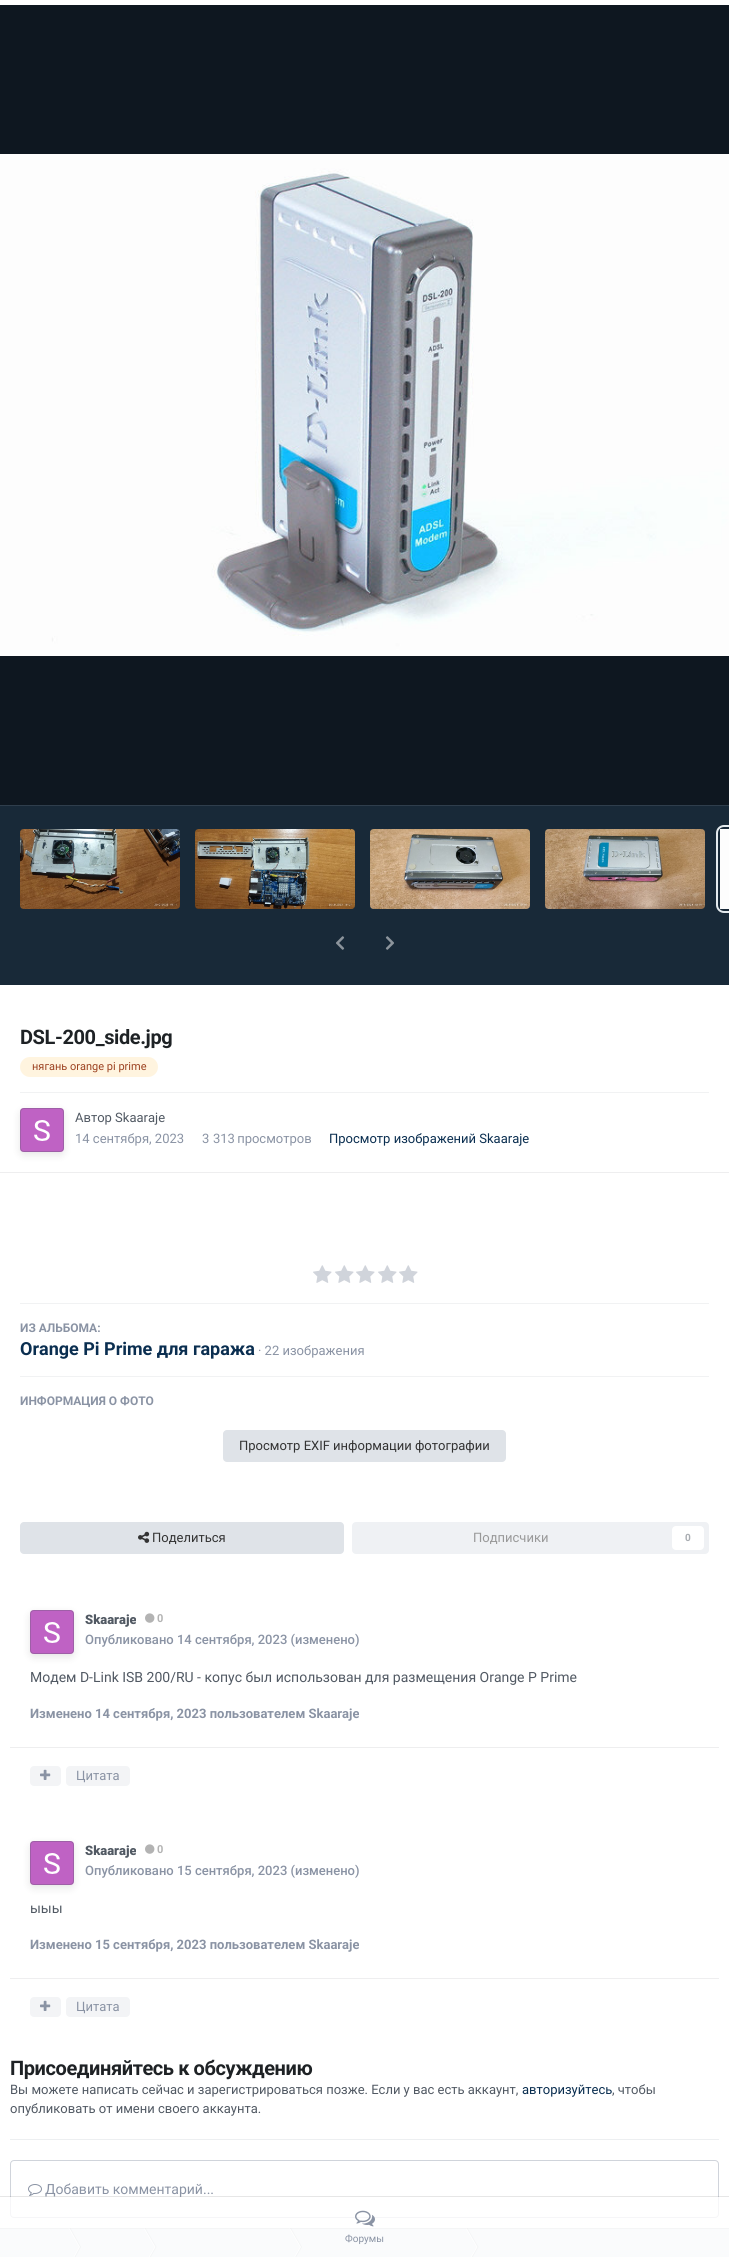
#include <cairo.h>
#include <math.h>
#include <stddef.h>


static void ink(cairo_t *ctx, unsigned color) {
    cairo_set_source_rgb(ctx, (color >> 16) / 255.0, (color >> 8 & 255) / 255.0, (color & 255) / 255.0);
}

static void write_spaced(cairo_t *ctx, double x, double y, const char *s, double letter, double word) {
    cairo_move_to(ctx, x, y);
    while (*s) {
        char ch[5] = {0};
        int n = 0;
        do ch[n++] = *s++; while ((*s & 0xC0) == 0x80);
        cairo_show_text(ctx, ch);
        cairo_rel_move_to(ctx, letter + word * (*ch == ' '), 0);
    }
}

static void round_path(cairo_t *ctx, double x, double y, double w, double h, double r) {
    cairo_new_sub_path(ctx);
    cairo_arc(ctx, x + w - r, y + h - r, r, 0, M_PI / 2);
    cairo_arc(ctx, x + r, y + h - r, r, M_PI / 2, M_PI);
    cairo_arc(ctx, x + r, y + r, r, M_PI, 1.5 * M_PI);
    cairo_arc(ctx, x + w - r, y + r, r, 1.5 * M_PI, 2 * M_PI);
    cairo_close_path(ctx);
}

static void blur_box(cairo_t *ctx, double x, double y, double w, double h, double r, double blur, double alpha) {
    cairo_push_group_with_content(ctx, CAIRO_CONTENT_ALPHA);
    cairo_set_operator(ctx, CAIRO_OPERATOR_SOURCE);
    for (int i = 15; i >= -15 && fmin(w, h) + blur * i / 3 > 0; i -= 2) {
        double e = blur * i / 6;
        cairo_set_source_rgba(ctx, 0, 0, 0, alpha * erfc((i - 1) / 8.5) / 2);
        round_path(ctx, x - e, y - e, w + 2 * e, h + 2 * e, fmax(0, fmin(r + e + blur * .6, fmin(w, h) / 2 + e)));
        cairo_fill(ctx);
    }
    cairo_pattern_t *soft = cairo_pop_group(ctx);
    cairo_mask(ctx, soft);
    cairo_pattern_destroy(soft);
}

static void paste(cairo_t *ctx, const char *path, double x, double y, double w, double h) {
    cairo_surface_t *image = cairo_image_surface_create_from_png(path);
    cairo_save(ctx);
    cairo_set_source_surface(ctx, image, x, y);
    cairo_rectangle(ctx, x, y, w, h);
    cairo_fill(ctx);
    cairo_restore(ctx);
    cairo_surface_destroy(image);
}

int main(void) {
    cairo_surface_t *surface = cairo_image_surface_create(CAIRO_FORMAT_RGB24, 729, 2257);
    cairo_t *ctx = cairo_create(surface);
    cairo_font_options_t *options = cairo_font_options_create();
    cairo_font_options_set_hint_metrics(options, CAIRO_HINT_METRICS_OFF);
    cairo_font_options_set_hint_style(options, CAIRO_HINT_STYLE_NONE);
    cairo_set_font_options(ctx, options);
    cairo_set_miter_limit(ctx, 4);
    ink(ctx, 0xFFFFFF);
    cairo_paint(ctx);
    ink(ctx, 0x0E1720);
    cairo_rectangle(ctx, 0, 5, 729, 800);
    cairo_fill(ctx);
    paste(ctx, "media/1.png", 0, 154, 729, 502);
    ink(ctx, 0x182938);
    cairo_rectangle(ctx, 0, 806, 729, 179);
    cairo_fill(ctx);
    ink(ctx, 0x2F3E4C);
    cairo_rectangle(ctx, 0, 805, 729, 1);
    cairo_fill(ctx);
    paste(ctx, "media/2.png", 20, 829, 160, 80);
    paste(ctx, "media/3.png", 195, 829, 160, 80);
    paste(ctx, "media/4.png", 370, 829, 160, 80);
    paste(ctx, "media/5.png", 545, 829, 160, 80);
    round_path(ctx, 717, 826, 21, 86, 7);
    ink(ctx, 0xE4EAEE);
    cairo_stroke(ctx);
    ink(ctx, 0xFDFDFD);
    cairo_rectangle(ctx, 720, 829, 9, 80);
    cairo_fill(ctx);
    paste(ctx, "media/6.png", 336, 936, 9, 14);
    paste(ctx, "media/7.png", 385, 936, 9, 14);
    cairo_select_font_face(ctx, "Roboto", CAIRO_FONT_SLANT_NORMAL, CAIRO_FONT_WEIGHT_BOLD);
    cairo_set_font_size(ctx, 20);
    ink(ctx, 0x1E2225);
    write_spaced(ctx, 20, 1044, "DSL-200_side.jpg", -0.4, 0);
    ink(ctx, 0xFFF4DF);
    round_path(ctx, 20, 1057, 138, 20, 10);
    cairo_fill(ctx);
    cairo_select_font_face(ctx, "Roboto", CAIRO_FONT_SLANT_NORMAL, CAIRO_FONT_WEIGHT_NORMAL);
    cairo_set_font_size(ctx, 11);
    ink(ctx, 0x9C4221);
    cairo_move_to(ctx, 32, 1070);
    cairo_show_text(ctx, "нягань orange pi prime");
    ink(ctx, 0xF1F2F3);
    cairo_rectangle(ctx, 20, 1092, 689, 1);
    cairo_fill(ctx);
    paste(ctx, "media/8.png", 20, 1108, 44, 44);
    cairo_save(ctx);
    cairo_set_fill_rule(ctx, CAIRO_FILL_RULE_EVEN_ODD);
    cairo_new_path(ctx);
    cairo_move_to(ctx, 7, 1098);
    cairo_line_to(ctx, 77, 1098);
    cairo_line_to(ctx, 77, 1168);
    cairo_line_to(ctx, 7, 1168);
    cairo_close_path(ctx);
    cairo_move_to(ctx, 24, 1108);
    cairo_line_to(ctx, 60, 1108);
    cairo_curve_to(ctx, 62, 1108, 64, 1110, 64, 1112);
    cairo_line_to(ctx, 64, 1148);
    cairo_curve_to(ctx, 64, 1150, 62, 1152, 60, 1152);
    cairo_line_to(ctx, 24, 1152);
    cairo_curve_to(ctx, 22, 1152, 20, 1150, 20, 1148);
    cairo_line_to(ctx, 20, 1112);
    cairo_curve_to(ctx, 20, 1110, 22, 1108, 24, 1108);
    cairo_close_path(ctx);
    cairo_clip(ctx);
    ink(ctx, 0x000000);
    blur_box(ctx, 20, 1111, 44, 44, 4, 4, 0.1);
    cairo_restore(ctx);
    round_path(ctx, 20.5, 1108.5, 43, 43, 3.5);
    cairo_set_source_rgba(ctx, 0.318, 0.349, 0.388, 0.3);
    cairo_set_line_width(ctx, 1);
    cairo_stroke(ctx);
    cairo_set_font_size(ctx, 13);
    ink(ctx, 0x515963);
    cairo_move_to(ctx, 75, 1122);
    cairo_show_text(ctx, "Автор Skaaraje");
    ink(ctx, 0x8A93A4);
    cairo_move_to(ctx, 75, 1143);
    cairo_show_text(ctx, "14 сентября, 2023");
    cairo_move_to(ctx, 202, 1143);
    cairo_show_text(ctx, "3");
    write_spaced(ctx, 213, 1143, "313 просмотров", 0, -1);
    ink(ctx, 0x0A2E50);
    cairo_move_to(ctx, 329, 1143);
    cairo_show_text(ctx, "Просмотр изображений Skaaraje");
    ink(ctx, 0xEEEEEF);
    cairo_rectangle(ctx, 0, 1172, 729, 1);
    cairo_fill(ctx);
    paste(ctx, "media/9.png", 313, 1265, 19, 18);
    paste(ctx, "media/9.png", 335, 1265, 19, 18);
    paste(ctx, "media/9.png", 356, 1265, 19, 18);
    paste(ctx, "media/9.png", 378, 1265, 19, 18);
    paste(ctx, "media/9.png", 399, 1265, 19, 18);
    ink(ctx, 0xF1F2F3);
    cairo_rectangle(ctx, 20, 1303, 689, 1);
    cairo_fill(ctx);
    cairo_select_font_face(ctx, "Roboto", CAIRO_FONT_SLANT_NORMAL, CAIRO_FONT_WEIGHT_BOLD);
    cairo_set_font_size(ctx, 12);
    ink(ctx, 0x8A93A4);
    cairo_move_to(ctx, 20, 1332);
    cairo_show_text(ctx, "ИЗ АЛЬБОМА:");
    cairo_set_font_size(ctx, 18);
    ink(ctx, 0x0A2E50);
    cairo_move_to(ctx, 20, 1355);
    cairo_show_text(ctx, "Orange Pi Prime для гаража");
    cairo_select_font_face(ctx, "Roboto", CAIRO_FONT_SLANT_NORMAL, CAIRO_FONT_WEIGHT_NORMAL);
    cairo_set_font_size(ctx, 13);
    ink(ctx, 0x8A93A4);
    cairo_move_to(ctx, 258, 1355);
    cairo_show_text(ctx, "· 22 изображения");
    ink(ctx, 0xF1F2F3);
    cairo_rectangle(ctx, 20, 1376, 689, 1);
    cairo_fill(ctx);
    cairo_select_font_face(ctx, "Roboto", CAIRO_FONT_SLANT_NORMAL, CAIRO_FONT_WEIGHT_BOLD);
    cairo_set_font_size(ctx, 12);
    ink(ctx, 0x8A93A4);
    cairo_move_to(ctx, 20, 1405);
    cairo_show_text(ctx, "ИНФОРМАЦИЯ О ФОТО");
    ink(ctx, 0xDFE3E8);
    round_path(ctx, 223, 1430, 283, 32, 4);
    cairo_fill(ctx);
    cairo_select_font_face(ctx, "Roboto", CAIRO_FONT_SLANT_NORMAL, CAIRO_FONT_WEIGHT_NORMAL);
    cairo_set_font_size(ctx, 13);
    ink(ctx, 0x333333);
    cairo_move_to(ctx, 239, 1450);
    cairo_show_text(ctx, "Просмотр EXIF информации фотографии");
    ink(ctx, 0xDFE3E8);
    round_path(ctx, 20, 1522, 324, 32, 4);
    cairo_fill(ctx);
    paste(ctx, "media/10.png", 138, 1531, 12, 12);
    ink(ctx, 0x333333);
    cairo_move_to(ctx, 152, 1542);
    cairo_show_text(ctx, "Поделиться");
    ink(ctx, 0xEFF1F4);
    round_path(ctx, 352, 1522, 357, 32, 4);
    cairo_fill(ctx);
    ink(ctx, 0x999999);
    cairo_move_to(ctx, 473, 1542);
    cairo_show_text(ctx, "Подписчики");
    ink(ctx, 0xFFFFFF);
    round_path(ctx, 672, 1526, 32, 24, 4);
    cairo_fill(ctx);
    cairo_select_font_face(ctx, "Roboto", CAIRO_FONT_SLANT_NORMAL, CAIRO_FONT_WEIGHT_BOLD);
    cairo_set_font_size(ctx, 10);
    ink(ctx, 0xA8ACB1);
    cairo_move_to(ctx, 685, 1541);
    cairo_show_text(ctx, "0");
    paste(ctx, "media/8.png", 30, 1610, 44, 44);
    cairo_save(ctx);
    cairo_set_fill_rule(ctx, CAIRO_FILL_RULE_EVEN_ODD);
    cairo_new_path(ctx);
    cairo_move_to(ctx, 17, 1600);
    cairo_line_to(ctx, 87, 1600);
    cairo_line_to(ctx, 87, 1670);
    cairo_line_to(ctx, 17, 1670);
    cairo_close_path(ctx);
    cairo_move_to(ctx, 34, 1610);
    cairo_line_to(ctx, 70, 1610);
    cairo_curve_to(ctx, 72, 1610, 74, 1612, 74, 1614);
    cairo_line_to(ctx, 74, 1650);
    cairo_curve_to(ctx, 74, 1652, 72, 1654, 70, 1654);
    cairo_line_to(ctx, 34, 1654);
    cairo_curve_to(ctx, 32, 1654, 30, 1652, 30, 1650);
    cairo_line_to(ctx, 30, 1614);
    cairo_curve_to(ctx, 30, 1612, 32, 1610, 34, 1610);
    cairo_close_path(ctx);
    cairo_clip(ctx);
    ink(ctx, 0x000000);
    blur_box(ctx, 30, 1613, 44, 44, 4, 4, 0.1);
    cairo_restore(ctx);
    round_path(ctx, 30.5, 1610.5, 43, 43, 3.5);
    cairo_set_source_rgba(ctx, 0.318, 0.349, 0.388, 0.3);
    cairo_stroke(ctx);
    cairo_select_font_face(ctx, "Roboto Black", CAIRO_FONT_SLANT_NORMAL, CAIRO_FONT_WEIGHT_NORMAL);
    cairo_set_font_size(ctx, 13);
    ink(ctx, 0x515963);
    cairo_move_to(ctx, 85, 1624);
    cairo_show_text(ctx, "Skaaraje");
    paste(ctx, "media/11.png", 145, 1613, 10, 10);
    cairo_select_font_face(ctx, "Roboto", CAIRO_FONT_SLANT_NORMAL, CAIRO_FONT_WEIGHT_BOLD);
    cairo_set_font_size(ctx, 11);
    ink(ctx, 0xB3B3B3);
    cairo_move_to(ctx, 157, 1622);
    cairo_show_text(ctx, "0");
    cairo_select_font_face(ctx, "Roboto Medium", CAIRO_FONT_SLANT_NORMAL, CAIRO_FONT_WEIGHT_NORMAL);
    cairo_set_font_size(ctx, 13);
    ink(ctx, 0x8A93A4);
    cairo_move_to(ctx, 85, 1644);
    cairo_show_text(ctx, "Опубликовано 14 сентября, 2023 (изменено)");
    cairo_select_font_face(ctx, "Roboto", CAIRO_FONT_SLANT_NORMAL, CAIRO_FONT_WEIGHT_NORMAL);
    cairo_set_font_size(ctx, 14);
    ink(ctx, 0x515963);
    cairo_move_to(ctx, 30, 1682);
    cairo_show_text(ctx, "Модем D-Link ISB 200/RU - копус был использован для размещения Orange P Prime");
    cairo_select_font_face(ctx, "Roboto", CAIRO_FONT_SLANT_NORMAL, CAIRO_FONT_WEIGHT_BOLD);
    cairo_set_font_size(ctx, 13);
    ink(ctx, 0x8A93A4);
    cairo_move_to(ctx, 30, 1718);
    cairo_show_text(ctx, "Изменено 14 сентября, 2023 пользователем Skaaraje");
    ink(ctx, 0xEEEEEF);
    cairo_rectangle(ctx, 10, 1747, 709, 1);
    cairo_fill(ctx);
    ink(ctx, 0xF3F4F6);
    round_path(ctx, 30, 1766, 31, 20, 4);
    cairo_fill(ctx);
    paste(ctx, "media/12.png", 40, 1769, 11, 11);
    round_path(ctx, 66, 1766, 64, 20, 4);
    cairo_fill(ctx);
    cairo_select_font_face(ctx, "Roboto", CAIRO_FONT_SLANT_NORMAL, CAIRO_FONT_WEIGHT_NORMAL);
    ink(ctx, 0x8A93A4);
    cairo_move_to(ctx, 76, 1780);
    cairo_show_text(ctx, "Цитата");
    paste(ctx, "media/8.png", 30, 1841, 44, 44);
    cairo_save(ctx);
    cairo_set_fill_rule(ctx, CAIRO_FILL_RULE_EVEN_ODD);
    cairo_new_path(ctx);
    cairo_move_to(ctx, 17, 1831);
    cairo_line_to(ctx, 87, 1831);
    cairo_line_to(ctx, 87, 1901);
    cairo_line_to(ctx, 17, 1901);
    cairo_close_path(ctx);
    cairo_move_to(ctx, 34, 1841);
    cairo_line_to(ctx, 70, 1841);
    cairo_curve_to(ctx, 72, 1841, 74, 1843, 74, 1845);
    cairo_line_to(ctx, 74, 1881);
    cairo_curve_to(ctx, 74, 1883, 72, 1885, 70, 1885);
    cairo_line_to(ctx, 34, 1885);
    cairo_curve_to(ctx, 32, 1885, 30, 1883, 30, 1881);
    cairo_line_to(ctx, 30, 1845);
    cairo_curve_to(ctx, 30, 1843, 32, 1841, 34, 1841);
    cairo_close_path(ctx);
    cairo_clip(ctx);
    ink(ctx, 0x000000);
    blur_box(ctx, 30, 1844, 44, 44, 4, 4, 0.1);
    cairo_restore(ctx);
    round_path(ctx, 30.5, 1841.5, 43, 43, 3.5);
    cairo_set_source_rgba(ctx, 0.318, 0.349, 0.388, 0.3);
    cairo_stroke(ctx);
    cairo_select_font_face(ctx, "Roboto Black", CAIRO_FONT_SLANT_NORMAL, CAIRO_FONT_WEIGHT_NORMAL);
    ink(ctx, 0x515963);
    cairo_move_to(ctx, 85, 1855);
    cairo_show_text(ctx, "Skaaraje");
    paste(ctx, "media/11.png", 145, 1844, 10, 10);
    cairo_select_font_face(ctx, "Roboto", CAIRO_FONT_SLANT_NORMAL, CAIRO_FONT_WEIGHT_BOLD);
    cairo_set_font_size(ctx, 11);
    ink(ctx, 0xB3B3B3);
    cairo_move_to(ctx, 157, 1853);
    cairo_show_text(ctx, "0");
    cairo_select_font_face(ctx, "Roboto Medium", CAIRO_FONT_SLANT_NORMAL, CAIRO_FONT_WEIGHT_NORMAL);
    cairo_set_font_size(ctx, 13);
    ink(ctx, 0x8A93A4);
    cairo_move_to(ctx, 85, 1875);
    cairo_show_text(ctx, "Опубликовано 15 сентября, 2023 (изменено)");
    cairo_select_font_face(ctx, "Roboto", CAIRO_FONT_SLANT_NORMAL, CAIRO_FONT_WEIGHT_NORMAL);
    cairo_set_font_size(ctx, 14);
    ink(ctx, 0x515963);
    cairo_move_to(ctx, 30, 1913);
    cairo_show_text(ctx, "ыыы");
    cairo_select_font_face(ctx, "Roboto", CAIRO_FONT_SLANT_NORMAL, CAIRO_FONT_WEIGHT_BOLD);
    cairo_set_font_size(ctx, 13);
    ink(ctx, 0x8A93A4);
    cairo_move_to(ctx, 30, 1949);
    cairo_show_text(ctx, "Изменено 15 сентября, 2023 пользователем Skaaraje");
    ink(ctx, 0xEEEEEF);
    cairo_rectangle(ctx, 10, 1978, 709, 1);
    cairo_fill(ctx);
    ink(ctx, 0xF3F4F6);
    round_path(ctx, 30, 1997, 31, 20, 4);
    cairo_fill(ctx);
    paste(ctx, "media/12.png", 40, 2000, 11, 11);
    round_path(ctx, 66, 1997, 64, 20, 4);
    cairo_fill(ctx);
    cairo_select_font_face(ctx, "Roboto", CAIRO_FONT_SLANT_NORMAL, CAIRO_FONT_WEIGHT_NORMAL);
    ink(ctx, 0x8A93A4);
    cairo_move_to(ctx, 76, 2011);
    cairo_show_text(ctx, "Цитата");
    ink(ctx, 0xEDEFF1);
    cairo_rectangle(ctx, 10, 2139, 709, 1);
    cairo_fill(ctx);
    cairo_select_font_face(ctx, "Roboto", CAIRO_FONT_SLANT_NORMAL, CAIRO_FONT_WEIGHT_BOLD);
    cairo_set_font_size(ctx, 20);
    ink(ctx, 0x1E2225);
    write_spaced(ctx, 10, 2075, "Присоединяйтесь к обсуждению", -0.4, 0);
    cairo_select_font_face(ctx, "Roboto", CAIRO_FONT_SLANT_NORMAL, CAIRO_FONT_WEIGHT_NORMAL);
    cairo_set_font_size(ctx, 13);
    ink(ctx, 0x515963);
    cairo_move_to(ctx, 10, 2094);
    cairo_show_text(ctx, "Вы можете написать сейчас и зарегистрироваться позже. Если у вас есть аккаунт,");
    ink(ctx, 0x0A2E50);
    cairo_move_to(ctx, 522, 2094);
    cairo_show_text(ctx, "авторизуйтесь");
    ink(ctx, 0x515963);
    cairo_move_to(ctx, 612, 2094);
    cairo_show_text(ctx, ", чтобы");
    cairo_move_to(ctx, 10, 2113);
    cairo_show_text(ctx, "опубликовать от имени своего аккаунта.");
    round_path(ctx, 10.5, 2160.5, 708, 57, 3.5);
    ink(ctx, 0xD0D4DB);
    cairo_stroke(ctx);
    paste(ctx, "media/13.png", 28, 2184, 14, 12);
    cairo_set_font_size(ctx, 14);
    ink(ctx, 0x8A93A4);
    cairo_move_to(ctx, 45, 2194);
    cairo_show_text(ctx, "Добавить комментарий...");
    ink(ctx, 0xE4EAEE);
    cairo_rectangle(ctx, 0, 2228, 729, 29);
    cairo_fill(ctx);
    ink(ctx, 0xFFFFFF);
    cairo_new_path(ctx);
    cairo_move_to(ctx, 68.5, 2228);
    cairo_line_to(ctx, 69.5, 2228);
    cairo_line_to(ctx, 80, 2247);
    cairo_line_to(ctx, 79, 2247);
    cairo_close_path(ctx);
    cairo_fill(ctx);
    cairo_set_source_rgba(ctx, 0.318, 0.349, 0.388, 0.2);
    cairo_new_path(ctx);
    cairo_move_to(ctx, 69.5, 2228);
    cairo_line_to(ctx, 70.5, 2228);
    cairo_line_to(ctx, 81, 2247);
    cairo_line_to(ctx, 80, 2247);
    cairo_close_path(ctx);
    cairo_fill(ctx);
    ink(ctx, 0xFFFFFF);
    cairo_new_path(ctx);
    cairo_move_to(ctx, 143.5, 2228);
    cairo_line_to(ctx, 144.5, 2228);
    cairo_line_to(ctx, 155.5, 2247);
    cairo_line_to(ctx, 154.5, 2247);
    cairo_close_path(ctx);
    cairo_fill(ctx);
    cairo_set_source_rgba(ctx, 0.318, 0.349, 0.388, 0.2);
    cairo_new_path(ctx);
    cairo_move_to(ctx, 144.5, 2228);
    cairo_line_to(ctx, 145.5, 2228);
    cairo_line_to(ctx, 156.5, 2247);
    cairo_line_to(ctx, 155.5, 2247);
    cairo_close_path(ctx);
    cairo_fill(ctx);
    ink(ctx, 0xFFFFFF);
    cairo_new_path(ctx);
    cairo_move_to(ctx, 289, 2228);
    cairo_line_to(ctx, 290, 2228);
    cairo_line_to(ctx, 301, 2247);
    cairo_line_to(ctx, 300, 2247);
    cairo_close_path(ctx);
    cairo_fill(ctx);
    cairo_set_source_rgba(ctx, 0.318, 0.349, 0.388, 0.2);
    cairo_new_path(ctx);
    cairo_move_to(ctx, 290, 2228);
    cairo_line_to(ctx, 291, 2228);
    cairo_line_to(ctx, 302, 2247);
    cairo_line_to(ctx, 301, 2247);
    cairo_close_path(ctx);
    cairo_fill(ctx);
    ink(ctx, 0xFFFFFF);
    cairo_new_path(ctx);
    cairo_move_to(ctx, 465.5, 2228);
    cairo_line_to(ctx, 466.5, 2228);
    cairo_line_to(ctx, 477.5, 2247);
    cairo_line_to(ctx, 476.5, 2247);
    cairo_close_path(ctx);
    cairo_fill(ctx);
    cairo_set_source_rgba(ctx, 0.318, 0.349, 0.388, 0.2);
    cairo_new_path(ctx);
    cairo_move_to(ctx, 466.5, 2228);
    cairo_line_to(ctx, 467.5, 2228);
    cairo_line_to(ctx, 478.5, 2247);
    cairo_line_to(ctx, 477.5, 2247);
    cairo_close_path(ctx);
    cairo_fill(ctx);
    cairo_rectangle(ctx, 0, 2228, 729, 1);
    cairo_fill(ctx);
    ink(ctx, 0xFFFFFF);
    cairo_new_path(ctx);
    cairo_move_to(ctx, 68.5, 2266);
    cairo_line_to(ctx, 69.5, 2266);
    cairo_line_to(ctx, 80, 2247);
    cairo_line_to(ctx, 79, 2247);
    cairo_close_path(ctx);
    cairo_fill(ctx);
    cairo_set_source_rgba(ctx, 0.318, 0.349, 0.388, 0.2);
    cairo_new_path(ctx);
    cairo_move_to(ctx, 69.5, 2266);
    cairo_line_to(ctx, 70.5, 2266);
    cairo_line_to(ctx, 81, 2247);
    cairo_line_to(ctx, 80, 2247);
    cairo_close_path(ctx);
    cairo_fill(ctx);
    ink(ctx, 0xFFFFFF);
    cairo_new_path(ctx);
    cairo_move_to(ctx, 143.5, 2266);
    cairo_line_to(ctx, 144.5, 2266);
    cairo_line_to(ctx, 155.5, 2247);
    cairo_line_to(ctx, 154.5, 2247);
    cairo_close_path(ctx);
    cairo_fill(ctx);
    cairo_set_source_rgba(ctx, 0.318, 0.349, 0.388, 0.2);
    cairo_new_path(ctx);
    cairo_move_to(ctx, 144.5, 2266);
    cairo_line_to(ctx, 145.5, 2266);
    cairo_line_to(ctx, 156.5, 2247);
    cairo_line_to(ctx, 155.5, 2247);
    cairo_close_path(ctx);
    cairo_fill(ctx);
    ink(ctx, 0xFFFFFF);
    cairo_new_path(ctx);
    cairo_move_to(ctx, 289, 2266);
    cairo_line_to(ctx, 290, 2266);
    cairo_line_to(ctx, 301, 2247);
    cairo_line_to(ctx, 300, 2247);
    cairo_close_path(ctx);
    cairo_fill(ctx);
    cairo_set_source_rgba(ctx, 0.318, 0.349, 0.388, 0.2);
    cairo_new_path(ctx);
    cairo_move_to(ctx, 290, 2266);
    cairo_line_to(ctx, 291, 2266);
    cairo_line_to(ctx, 302, 2247);
    cairo_line_to(ctx, 301, 2247);
    cairo_close_path(ctx);
    cairo_fill(ctx);
    ink(ctx, 0xFFFFFF);
    cairo_new_path(ctx);
    cairo_move_to(ctx, 465.5, 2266);
    cairo_line_to(ctx, 466.5, 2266);
    cairo_line_to(ctx, 477.5, 2247);
    cairo_line_to(ctx, 476.5, 2247);
    cairo_close_path(ctx);
    cairo_fill(ctx);
    cairo_set_source_rgba(ctx, 0.318, 0.349, 0.388, 0.2);
    cairo_new_path(ctx);
    cairo_move_to(ctx, 466.5, 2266);
    cairo_line_to(ctx, 467.5, 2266);
    cairo_line_to(ctx, 478.5, 2247);
    cairo_line_to(ctx, 477.5, 2247);
    cairo_close_path(ctx);
    cairo_fill(ctx);
    cairo_set_source_rgba(ctx, 0, 0, 0, 0.1);
    cairo_rectangle(ctx, 0, 2196, 729, 1);
    cairo_fill(ctx);
    cairo_set_source_rgba(ctx, 1, 1, 1, 0.8);
    cairo_rectangle(ctx, 0, 2197, 729, 60);
    cairo_fill(ctx);
    paste(ctx, "media/14.png", 355, 2210, 20, 17);
    cairo_set_font_size(ctx, 10);
    ink(ctx, 0x8A93A4);
    cairo_move_to(ctx, 345, 2242);
    cairo_show_text(ctx, "Форумы");
    cairo_surface_write_to_png(surface, "image.png");
    cairo_font_options_destroy(options);
    cairo_destroy(ctx);
    cairo_surface_destroy(surface);
    return 0;
}
